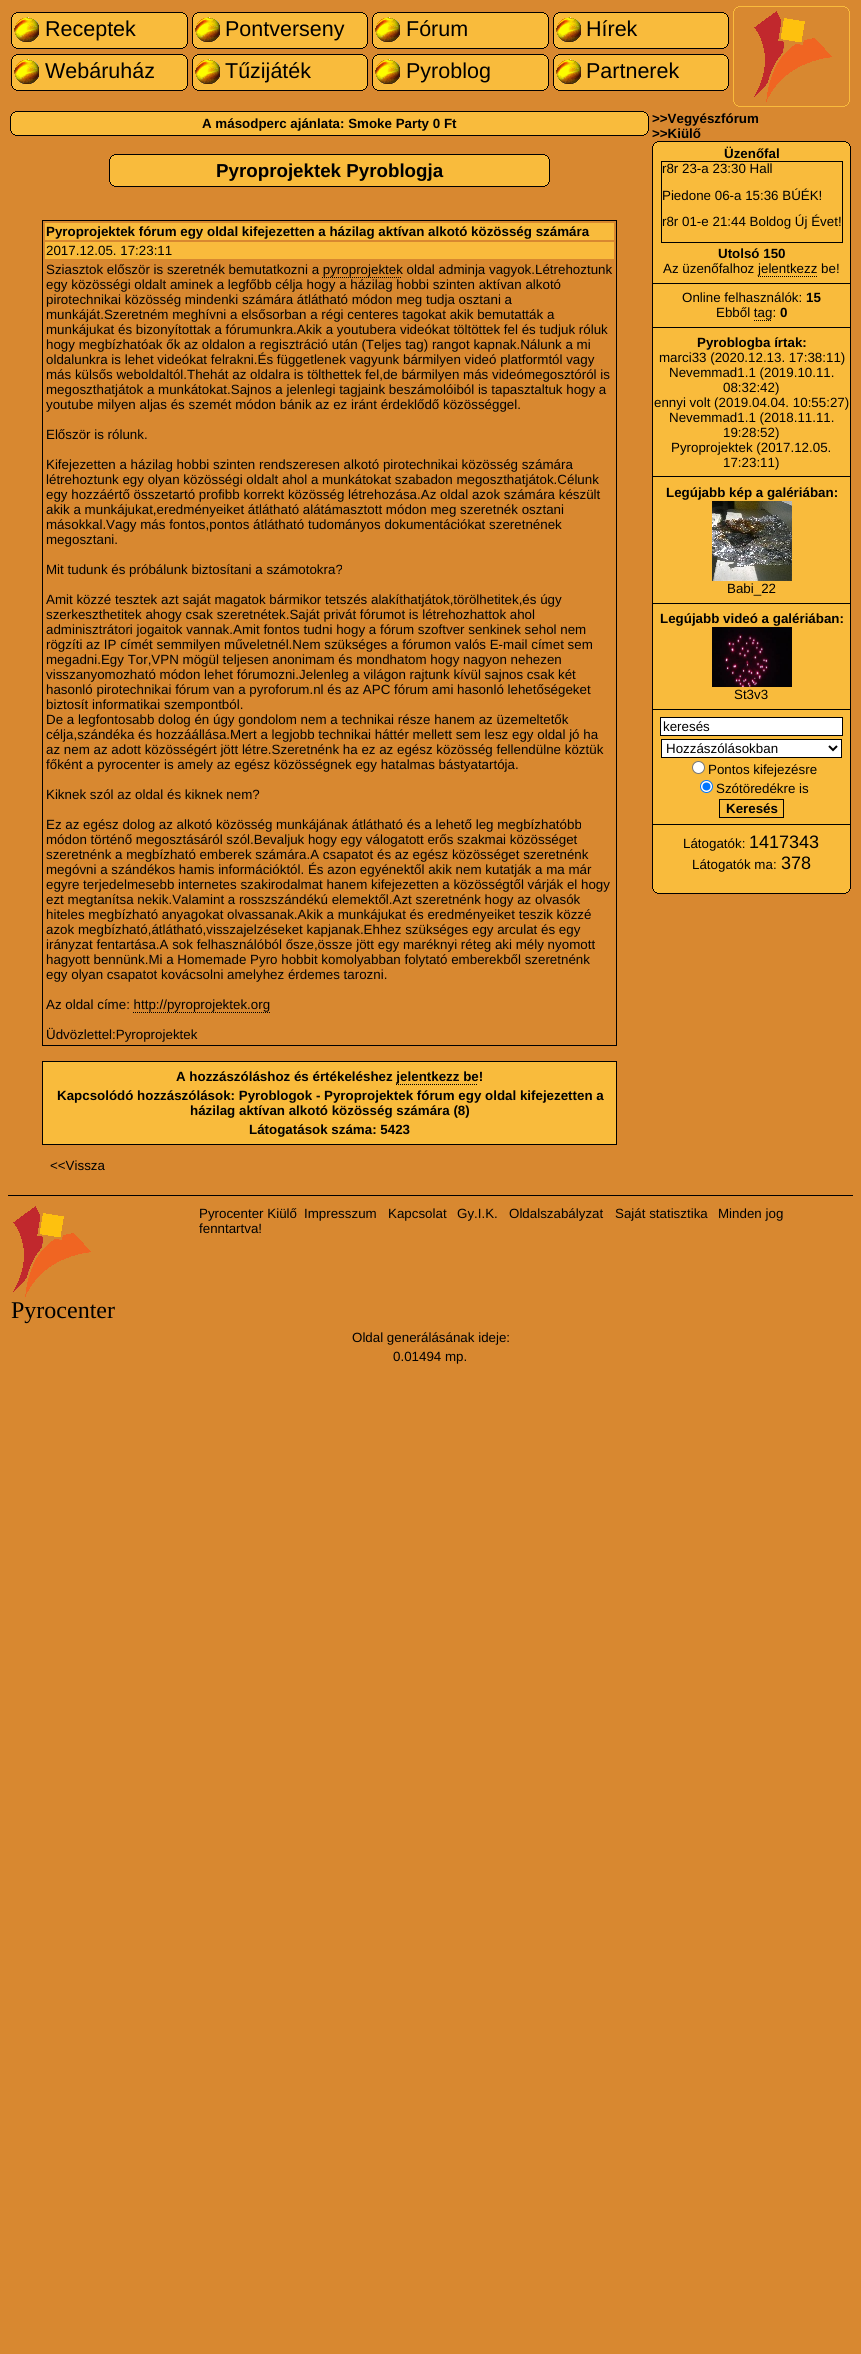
#include <cairo.h>
#include <math.h>
#include <stddef.h>

typedef struct { double x, y; const char *s; } line_t;
typedef struct { double x, y, w, h; unsigned color; } box_t;

static void ink(cairo_t *ctx, unsigned color) {
    cairo_set_source_rgb(ctx, (color >> 16) / 255.0, (color >> 8 & 255) / 255.0, (color & 255) / 255.0);
}

static void paste(cairo_t *ctx, const char *path, double x, double y, double w, double h) {
    cairo_surface_t *image = cairo_image_surface_create_from_png(path);
    cairo_save(ctx);
    cairo_set_source_surface(ctx, image, x, y);
    cairo_rectangle(ctx, x, y, w, h);
    cairo_fill(ctx);
    cairo_restore(ctx);
    cairo_surface_destroy(image);
}

int main(void) {
    cairo_surface_t *surface = cairo_image_surface_create(CAIRO_FORMAT_RGB24, 861, 2354);
    cairo_t *ctx = cairo_create(surface);
    cairo_font_options_t *options = cairo_font_options_create();
    cairo_font_options_set_hint_metrics(options, CAIRO_HINT_METRICS_OFF);
    cairo_font_options_set_hint_style(options, CAIRO_HINT_STYLE_NONE);
    cairo_set_font_options(ctx, options);
    cairo_set_miter_limit(ctx, 4);
    ink(ctx, 0xD88830);
    cairo_paint(ctx);
    {
        static const box_t items[] = {
            {16, 12, 167, 1, 0x000000},
            {14, 13, 171, 1, 0xF9BB3C},
            {183, 13, 2, 1, 0x000000},
            {14, 13, 2, 1, 0x000000},
            {13, 14, 173, 1, 0xF9BB3C},
            {185, 14, 1, 1, 0x000000},
            {13, 14, 1, 1, 0x000000},
            {12, 15, 175, 31, 0xF9BB3C},
            {186, 15, 1, 2, 0x000000},
            {12, 15, 1, 2, 0x000000},
            {187, 17, 1, 27, 0x000000},
            {11, 17, 1, 27, 0x000000},
        };
        for (size_t i = 0; i < sizeof items / sizeof *items; i++) {
            ink(ctx, items[i].color);
            cairo_rectangle(ctx, items[i].x, items[i].y, items[i].w, items[i].h);
            cairo_fill(ctx);
        }
    }
    paste(ctx, "media/1.png", 14, 17, 25, 25);
    cairo_select_font_face(ctx, "Liberation Sans", CAIRO_FONT_SLANT_NORMAL, CAIRO_FONT_WEIGHT_NORMAL);
    cairo_set_font_size(ctx, 21.5);
    cairo_move_to(ctx, 45, 36);
    cairo_show_text(ctx, "Receptek");
    {
        static const box_t items[] = {
            {186, 44, 1, 2, 0x000000},
            {12, 44, 1, 2, 0x000000},
            {13, 46, 173, 1, 0xF9BB3C},
            {185, 46, 1, 1, 0x000000},
            {13, 46, 1, 1, 0x000000},
            {14, 47, 171, 1, 0xF9BB3C},
            {183, 47, 2, 1, 0x000000},
            {14, 47, 2, 1, 0x000000},
            {16, 48, 167, 1, 0x000000},
            {197, 12, 166, 1, 0x000000},
            {195, 13, 170, 1, 0xF9BB3C},
            {363, 13, 2, 1, 0x000000},
            {195, 13, 2, 1, 0x000000},
            {194, 14, 172, 1, 0xF9BB3C},
            {365, 14, 1, 1, 0x000000},
            {194, 14, 1, 1, 0x000000},
            {193, 15, 174, 31, 0xF9BB3C},
            {366, 15, 1, 2, 0x000000},
            {193, 15, 1, 2, 0x000000},
            {367, 17, 1, 27, 0x000000},
            {192, 17, 1, 27, 0x000000},
        };
        for (size_t i = 0; i < sizeof items / sizeof *items; i++) {
            ink(ctx, items[i].color);
            cairo_rectangle(ctx, items[i].x, items[i].y, items[i].w, items[i].h);
            cairo_fill(ctx);
        }
    }
    paste(ctx, "media/1.png", 195, 17, 25, 25);
    cairo_move_to(ctx, 225, 36);
    cairo_show_text(ctx, "Pontverseny");
    {
        static const box_t items[] = {
            {366, 44, 1, 2, 0x000000},
            {193, 44, 1, 2, 0x000000},
            {194, 46, 172, 1, 0xF9BB3C},
            {365, 46, 1, 1, 0x000000},
            {194, 46, 1, 1, 0x000000},
            {195, 47, 170, 1, 0xF9BB3C},
            {363, 47, 2, 1, 0x000000},
            {195, 47, 2, 1, 0x000000},
            {197, 48, 166, 1, 0x000000},
            {377, 12, 167, 1, 0x000000},
            {375, 13, 171, 1, 0xF9BB3C},
            {544, 13, 2, 1, 0x000000},
            {375, 13, 2, 1, 0x000000},
            {374, 14, 173, 1, 0xF9BB3C},
            {546, 14, 1, 1, 0x000000},
            {374, 14, 1, 1, 0x000000},
            {373, 15, 175, 31, 0xF9BB3C},
            {547, 15, 1, 2, 0x000000},
            {373, 15, 1, 2, 0x000000},
            {548, 17, 1, 27, 0x000000},
            {372, 17, 1, 27, 0x000000},
        };
        for (size_t i = 0; i < sizeof items / sizeof *items; i++) {
            ink(ctx, items[i].color);
            cairo_rectangle(ctx, items[i].x, items[i].y, items[i].w, items[i].h);
            cairo_fill(ctx);
        }
    }
    paste(ctx, "media/1.png", 375, 17, 25, 25);
    cairo_move_to(ctx, 406, 36);
    cairo_show_text(ctx, "Fórum");
    {
        static const box_t items[] = {
            {547, 44, 1, 2, 0x000000},
            {373, 44, 1, 2, 0x000000},
            {374, 46, 173, 1, 0xF9BB3C},
            {546, 46, 1, 1, 0x000000},
            {374, 46, 1, 1, 0x000000},
            {375, 47, 171, 1, 0xF9BB3C},
            {544, 47, 2, 1, 0x000000},
            {375, 47, 2, 1, 0x000000},
            {377, 48, 167, 1, 0x000000},
            {558, 12, 166, 1, 0x000000},
            {556, 13, 170, 1, 0xF9BB3C},
            {724, 13, 2, 1, 0x000000},
            {556, 13, 2, 1, 0x000000},
            {555, 14, 172, 1, 0xF9BB3C},
            {726, 14, 1, 1, 0x000000},
            {555, 14, 1, 1, 0x000000},
            {554, 15, 174, 31, 0xF9BB3C},
            {727, 15, 1, 2, 0x000000},
            {554, 15, 1, 2, 0x000000},
            {728, 17, 1, 27, 0x000000},
            {553, 17, 1, 27, 0x000000},
        };
        for (size_t i = 0; i < sizeof items / sizeof *items; i++) {
            ink(ctx, items[i].color);
            cairo_rectangle(ctx, items[i].x, items[i].y, items[i].w, items[i].h);
            cairo_fill(ctx);
        }
    }
    paste(ctx, "media/1.png", 556, 17, 25, 25);
    cairo_move_to(ctx, 586, 36);
    cairo_show_text(ctx, "Hírek");
    {
        static const box_t items[] = {
            {727, 44, 1, 2, 0x000000},
            {554, 44, 1, 2, 0x000000},
            {555, 46, 172, 1, 0xF9BB3C},
            {726, 46, 1, 1, 0x000000},
            {555, 46, 1, 1, 0x000000},
            {556, 47, 170, 1, 0xF9BB3C},
            {724, 47, 2, 1, 0x000000},
            {556, 47, 2, 1, 0x000000},
            {558, 48, 166, 1, 0x000000},
            {738, 6, 107, 1, 0xF9BB3C},
            {845, 7, 2, 1, 0xF9BB3C},
            {736, 7, 2, 1, 0xF9BB3C},
            {847, 8, 1, 1, 0xF9BB3C},
            {735, 8, 1, 1, 0xF9BB3C},
            {848, 9, 1, 2, 0xF9BB3C},
            {734, 9, 1, 2, 0xF9BB3C},
            {849, 11, 1, 91, 0xF9BB3C},
            {733, 11, 1, 91, 0xF9BB3C},
        };
        for (size_t i = 0; i < sizeof items / sizeof *items; i++) {
            ink(ctx, items[i].color);
            cairo_rectangle(ctx, items[i].x, items[i].y, items[i].w, items[i].h);
            cairo_fill(ctx);
        }
    }
    paste(ctx, "media/2.png", 754, 11, 78, 91);
    {
        static const box_t items[] = {
            {848, 102, 1, 2, 0xF9BB3C},
            {734, 102, 1, 2, 0xF9BB3C},
            {847, 104, 1, 1, 0xF9BB3C},
            {735, 104, 1, 1, 0xF9BB3C},
            {845, 105, 2, 1, 0xF9BB3C},
            {736, 105, 2, 1, 0xF9BB3C},
            {738, 106, 107, 1, 0xF9BB3C},
            {16, 54, 167, 1, 0x000000},
            {14, 55, 171, 1, 0xF9BB3C},
            {183, 55, 2, 1, 0x000000},
            {14, 55, 2, 1, 0x000000},
            {13, 56, 173, 1, 0xF9BB3C},
            {185, 56, 1, 1, 0x000000},
            {13, 56, 1, 1, 0x000000},
            {12, 57, 175, 31, 0xF9BB3C},
            {186, 57, 1, 2, 0x000000},
            {12, 57, 1, 2, 0x000000},
            {187, 59, 1, 27, 0x000000},
            {11, 59, 1, 27, 0x000000},
        };
        for (size_t i = 0; i < sizeof items / sizeof *items; i++) {
            ink(ctx, items[i].color);
            cairo_rectangle(ctx, items[i].x, items[i].y, items[i].w, items[i].h);
            cairo_fill(ctx);
        }
    }
    paste(ctx, "media/1.png", 14, 59, 25, 25);
    cairo_move_to(ctx, 45, 78);
    cairo_show_text(ctx, "Webáruház");
    {
        static const box_t items[] = {
            {186, 86, 1, 2, 0x000000},
            {12, 86, 1, 2, 0x000000},
            {13, 88, 173, 1, 0xF9BB3C},
            {185, 88, 1, 1, 0x000000},
            {13, 88, 1, 1, 0x000000},
            {14, 89, 171, 1, 0xF9BB3C},
            {183, 89, 2, 1, 0x000000},
            {14, 89, 2, 1, 0x000000},
            {16, 90, 167, 1, 0x000000},
            {197, 54, 166, 1, 0x000000},
            {195, 55, 170, 1, 0xF9BB3C},
            {363, 55, 2, 1, 0x000000},
            {195, 55, 2, 1, 0x000000},
            {194, 56, 172, 1, 0xF9BB3C},
            {365, 56, 1, 1, 0x000000},
            {194, 56, 1, 1, 0x000000},
            {193, 57, 174, 31, 0xF9BB3C},
            {366, 57, 1, 2, 0x000000},
            {193, 57, 1, 2, 0x000000},
            {367, 59, 1, 27, 0x000000},
            {192, 59, 1, 27, 0x000000},
        };
        for (size_t i = 0; i < sizeof items / sizeof *items; i++) {
            ink(ctx, items[i].color);
            cairo_rectangle(ctx, items[i].x, items[i].y, items[i].w, items[i].h);
            cairo_fill(ctx);
        }
    }
    paste(ctx, "media/1.png", 195, 59, 25, 25);
    cairo_move_to(ctx, 225, 78);
    cairo_show_text(ctx, "Tűzijáték");
    {
        static const box_t items[] = {
            {366, 86, 1, 2, 0x000000},
            {193, 86, 1, 2, 0x000000},
            {194, 88, 172, 1, 0xF9BB3C},
            {365, 88, 1, 1, 0x000000},
            {194, 88, 1, 1, 0x000000},
            {195, 89, 170, 1, 0xF9BB3C},
            {363, 89, 2, 1, 0x000000},
            {195, 89, 2, 1, 0x000000},
            {197, 90, 166, 1, 0x000000},
            {377, 54, 167, 1, 0x000000},
            {375, 55, 171, 1, 0xF9BB3C},
            {544, 55, 2, 1, 0x000000},
            {375, 55, 2, 1, 0x000000},
            {374, 56, 173, 1, 0xF9BB3C},
            {546, 56, 1, 1, 0x000000},
            {374, 56, 1, 1, 0x000000},
            {373, 57, 175, 31, 0xF9BB3C},
            {547, 57, 1, 2, 0x000000},
            {373, 57, 1, 2, 0x000000},
            {548, 59, 1, 27, 0x000000},
            {372, 59, 1, 27, 0x000000},
        };
        for (size_t i = 0; i < sizeof items / sizeof *items; i++) {
            ink(ctx, items[i].color);
            cairo_rectangle(ctx, items[i].x, items[i].y, items[i].w, items[i].h);
            cairo_fill(ctx);
        }
    }
    paste(ctx, "media/1.png", 375, 59, 25, 25);
    cairo_move_to(ctx, 406, 78);
    cairo_show_text(ctx, "Pyroblog");
    {
        static const box_t items[] = {
            {547, 86, 1, 2, 0x000000},
            {373, 86, 1, 2, 0x000000},
            {374, 88, 173, 1, 0xF9BB3C},
            {546, 88, 1, 1, 0x000000},
            {374, 88, 1, 1, 0x000000},
            {375, 89, 171, 1, 0xF9BB3C},
            {544, 89, 2, 1, 0x000000},
            {375, 89, 2, 1, 0x000000},
            {377, 90, 167, 1, 0x000000},
            {558, 54, 166, 1, 0x000000},
            {556, 55, 170, 1, 0xF9BB3C},
            {724, 55, 2, 1, 0x000000},
            {556, 55, 2, 1, 0x000000},
            {555, 56, 172, 1, 0xF9BB3C},
            {726, 56, 1, 1, 0x000000},
            {555, 56, 1, 1, 0x000000},
            {554, 57, 174, 31, 0xF9BB3C},
            {727, 57, 1, 2, 0x000000},
            {554, 57, 1, 2, 0x000000},
            {728, 59, 1, 27, 0x000000},
            {553, 59, 1, 27, 0x000000},
        };
        for (size_t i = 0; i < sizeof items / sizeof *items; i++) {
            ink(ctx, items[i].color);
            cairo_rectangle(ctx, items[i].x, items[i].y, items[i].w, items[i].h);
            cairo_fill(ctx);
        }
    }
    paste(ctx, "media/1.png", 556, 59, 25, 25);
    cairo_move_to(ctx, 586, 78);
    cairo_show_text(ctx, "Partnerek");
    {
        static const box_t items[] = {
            {727, 86, 1, 2, 0x000000},
            {554, 86, 1, 2, 0x000000},
            {555, 88, 172, 1, 0xF9BB3C},
            {726, 88, 1, 1, 0x000000},
            {555, 88, 1, 1, 0x000000},
            {556, 89, 170, 1, 0xF9BB3C},
            {724, 89, 2, 1, 0x000000},
            {556, 89, 2, 1, 0x000000},
            {558, 90, 166, 1, 0x000000},
            {15, 111, 629, 1, 0x000000},
            {13, 112, 633, 1, 0xF9BB3C},
            {644, 112, 2, 1, 0x000000},
            {13, 112, 2, 1, 0x000000},
            {12, 113, 635, 1, 0xF9BB3C},
            {646, 113, 1, 1, 0x000000},
            {12, 113, 1, 1, 0x000000},
            {11, 114, 637, 19, 0xF9BB3C},
            {647, 114, 1, 2, 0x000000},
            {11, 114, 1, 2, 0x000000},
            {648, 116, 1, 15, 0x000000},
            {10, 116, 1, 15, 0x000000},
        };
        for (size_t i = 0; i < sizeof items / sizeof *items; i++) {
            ink(ctx, items[i].color);
            cairo_rectangle(ctx, items[i].x, items[i].y, items[i].w, items[i].h);
            cairo_fill(ctx);
        }
    }
    cairo_select_font_face(ctx, "Liberation Sans", CAIRO_FONT_SLANT_NORMAL, CAIRO_FONT_WEIGHT_BOLD);
    cairo_set_font_size(ctx, 13.35);
    cairo_move_to(ctx, 202, 128);
    cairo_show_text(ctx, "A másodperc ajánlata: Smoke Party 0 Ft");
    {
        static const box_t items[] = {
            {647, 131, 1, 2, 0x000000},
            {11, 131, 1, 2, 0x000000},
            {12, 133, 635, 1, 0xF9BB3C},
            {646, 133, 1, 1, 0x000000},
            {12, 133, 1, 1, 0x000000},
            {13, 134, 633, 1, 0xF9BB3C},
            {644, 134, 2, 1, 0x000000},
            {13, 134, 2, 1, 0x000000},
            {15, 135, 629, 1, 0x000000},
            {114, 154, 431, 1, 0x000000},
            {112, 155, 435, 1, 0xF9BB3C},
            {545, 155, 2, 1, 0x000000},
            {112, 155, 2, 1, 0x000000},
            {111, 156, 437, 1, 0xF9BB3C},
            {547, 156, 1, 1, 0x000000},
            {111, 156, 1, 1, 0x000000},
            {110, 157, 439, 27, 0xF9BB3C},
            {548, 157, 1, 2, 0x000000},
            {110, 157, 1, 2, 0x000000},
            {549, 159, 1, 23, 0x000000},
            {109, 159, 1, 23, 0x000000},
        };
        for (size_t i = 0; i < sizeof items / sizeof *items; i++) {
            ink(ctx, items[i].color);
            cairo_rectangle(ctx, items[i].x, items[i].y, items[i].w, items[i].h);
            cairo_fill(ctx);
        }
    }
    cairo_set_font_size(ctx, 18.75);
    cairo_move_to(ctx, 216, 177);
    cairo_show_text(ctx, "Pyroprojektek Pyroblogja");
    {
        static const box_t items[] = {
            {548, 182, 1, 2, 0x000000},
            {110, 182, 1, 2, 0x000000},
            {111, 184, 437, 1, 0xF9BB3C},
            {547, 184, 1, 1, 0x000000},
            {111, 184, 1, 1, 0x000000},
            {112, 185, 435, 1, 0xF9BB3C},
            {545, 185, 2, 1, 0x000000},
            {112, 185, 2, 1, 0x000000},
            {114, 186, 431, 1, 0x000000},
        };
        for (size_t i = 0; i < sizeof items / sizeof *items; i++) {
            ink(ctx, items[i].color);
            cairo_rectangle(ctx, items[i].x, items[i].y, items[i].w, items[i].h);
            cairo_fill(ctx);
        }
    }
    cairo_rectangle(ctx, 42.5, 220.5, 574, 825);
    cairo_set_line_width(ctx, 1);
    cairo_stroke(ctx);
    ink(ctx, 0xF9BB3C);
    cairo_rectangle(ctx, 45, 223, 569, 17);
    cairo_fill(ctx);
    cairo_set_font_size(ctx, 13.35);
    ink(ctx, 0x000000);
    cairo_move_to(ctx, 46, 236);
    cairo_show_text(ctx, "Pyroprojektek fórum egy oldal kifejezetten a házilag aktívan alkotó közösség számára");
    ink(ctx, 0xF9BB3C);
    cairo_rectangle(ctx, 45, 242, 569, 17);
    cairo_fill(ctx);
    cairo_select_font_face(ctx, "Liberation Sans", CAIRO_FONT_SLANT_NORMAL, CAIRO_FONT_WEIGHT_NORMAL);
    ink(ctx, 0x000000);
    cairo_move_to(ctx, 46, 255);
    cairo_show_text(ctx, "2017.12.05. 17:23:11");
    cairo_move_to(ctx, 46, 274);
    cairo_show_text(ctx, "Sziasztok először is szeretnék bemutatkozni a pyroprojektek oldal adminja vagyok.Létrehoztunk");
    cairo_new_path(ctx);
    cairo_move_to(ctx, 322, 277.5);
    cairo_line_to(ctx, 402, 277.5);
    cairo_set_dash(ctx, (double[]){1, 1}, 2, 0);
    cairo_stroke(ctx);
    {
        static const line_t items[] = {
            {46, 289, "egy közösségi oldalt aminek a legfőbb célja hogy a házilag hobbi szinten aktívan alkotó"},
            {46, 304, "pirotechnikai közösség mindenki számára átlátható módon meg tudja osztani a"},
            {46, 319, "munkáját.Szeretném meghívni a elsősorban a régi centeres tagokat akik bemutatták a"},
            {46, 334, "munkájukat és bizonyítottak a fórumunkra.Akik a youtubera videókat töltöttek fel és tudjuk róluk"},
            {46, 349, "hogy megbízhatóak ők az oldalon a regisztráció után (Teljes tag) rangot kapnak.Nálunk a mi"},
            {46, 364, "oldalunkra is lehet videókat felrakni.És függetlenek vagyunk bármilyen videó platformtól vagy"},
            {46, 379, "más külsős weboldaltól.Thehát az oldalra is tölthettek fel,de bármilyen más videómegosztóról is"},
            {46, 394, "megoszthatjátok a munkátokat.Sajnos a jelenlegi tagjaink beszámolóiból is tapasztaltuk hogy a"},
            {46, 409, "youtube milyen aljas és szemét módon bánik az ez iránt érdeklődő közösséggel."},
            {46, 439, "Először is rólunk."},
            {46, 469, "Kifejezetten a házilag hobbi szinten rendszeresen alkotó pirotechnikai közösség számára"},
            {46, 484, "létrehoztunk egy olyan közösségi oldalt ahol a munkátokat szabadon megoszthatjátok.Célunk"},
            {46, 499, "egy hozzáértő összetartó profibb korrekt közösség létrehozása.Az oldal azok számára készült"},
            {46, 514, "akik a munkájukat,eredményeiket átlátható alátámasztott módon meg szeretnék osztani"},
            {46, 529, "másokkal.Vagy más fontos,pontos átlátható tudományos dokumentációkat szeretnének"},
            {46, 544, "megosztani."},
            {46, 574, "Mit tudunk és próbálunk biztosítani a számotokra?"},
            {46, 604, "Amit közzé tesztek azt saját magatok bármikor tetszés alakíthatjátok,törölhetitek,és úgy"},
            {46, 619, "szerkeszthetitek ahogy csak szeretnétek.Saját privát fórumot is létrehozhattok ahol"},
            {46, 634, "adminisztrátori jogaitok vannak.Amit fontos tudni hogy a fórum szoftver senkinek sehol nem"},
            {46, 649, "rögzíti az IP címét semmilyen műveletnél.Nem szükséges a fórumon valós E-mail címet sem"},
            {46, 664, "megadni.Egy Tor,VPN mögül teljesen anonimam és mondhatom hogy nagyon nehezen"},
            {46, 679, "visszanyomozható módon lehet fórumozni.Jelenleg a világon rajtunk kívül sajnos csak két"},
            {46, 694, "hasonló pirotechnikai fórum van a pyroforum.nl és az APC fórum ami hasonló lehetőségeket"},
            {46, 709, "biztosít informatikai szempontból."},
            {46, 724, "De a legfontosabb dolog én úgy gondolom nem a technikai része hanem az üzemeltetők"},
            {46, 739, "célja,szándéka és hozzáállása.Mert a legjobb technikai háttér mellett sem lesz egy oldal jó ha"},
            {46, 754, "az nem az adott közösségért jött létre.Szeretnénk ha ez az egész közösség fellendülne köztük"},
            {46, 769, "főként a pyrocenter is amely az egész közösségnek egy hatalmas bástyatartója."},
            {46, 799, "Kiknek szól az oldal és kiknek nem?"},
            {46, 829, "Ez az egész dolog az alkotó közösség munkájának átlátható és a lehető leg megbízhatóbb"},
            {46, 844, "módon történő megosztásáról szól.Bevaljuk hogy egy válogatott erős szakmai közösséget"},
            {46, 859, "szeretnénk a megbízható emberek számára.A csapatot és az egész közösséget szeretnénk"},
            {46, 874, "megóvni a szándékos hamis információktól. És azon egyénektől akik nem kutatják a ma már"},
            {46, 889, "egyre terjedelmesebb internetes szakirodalmat hanem kifejezetten a közösségtől várják el hogy"},
            {46, 904, "ezt megtanítsa nekik.Valamint a rosszszándékú elemektől.Azt szeretnénk hogy az olvasók"},
            {46, 919, "hiteles megbízható anyagokat olvassanak.Akik a munkájukat és eredményeiket teszik közzé"},
            {46, 934, "azok megbízható,átlátható,visszajelzéseket kapjanak.Ehhez szükséges egy arculat és egy"},
            {46, 949, "irányzat fentartása.A sok felhasználóból ősze,össze jött egy maréknyi réteg aki mély nyomott"},
            {46, 964, "hagyott bennünk.Mi a Homemade Pyro hobbit komolyabban folytató emberekből szeretnénk"},
            {46, 979, "egy olyan csapatot kovácsolni amelyhez érdemes tarozni."},
            {46, 1009, "Az oldal címe: http://pyroprojektek.org"},
        };
        for (size_t i = 0; i < sizeof items / sizeof *items; i++) {
            cairo_move_to(ctx, items[i].x, items[i].y);
            cairo_show_text(ctx, items[i].s);
        }
    }
    cairo_new_path(ctx);
    cairo_move_to(ctx, 133, 1012.5);
    cairo_line_to(ctx, 270, 1012.5);
    cairo_stroke(ctx);
    cairo_move_to(ctx, 46, 1039);
    cairo_show_text(ctx, "Üdvözlettel:Pyroprojektek");
    ink(ctx, 0xF9BB3C);
    cairo_rectangle(ctx, 42.5, 1061.5, 574, 83);
    cairo_fill_preserve(ctx);
    ink(ctx, 0x000000);
    cairo_set_dash(ctx, NULL, 0, 0);
    cairo_stroke(ctx);
    cairo_select_font_face(ctx, "Liberation Sans", CAIRO_FONT_SLANT_NORMAL, CAIRO_FONT_WEIGHT_BOLD);
    cairo_move_to(ctx, 176, 1081);
    cairo_show_text(ctx, "A hozzászóláshoz és értékeléshez jelentkezz be!");
    cairo_new_path(ctx);
    cairo_move_to(ctx, 396, 1084.5);
    cairo_line_to(ctx, 478, 1084.5);
    cairo_set_dash(ctx, (double[]){1, 1}, 2, 0);
    cairo_stroke(ctx);
    {
        static const line_t items[] = {
            {57, 1100, "Kapcsolódó hozzászólások: Pyroblogok - Pyroprojektek fórum egy oldal kifejezetten a"},
            {190, 1115, "házilag aktívan alkotó közösség számára (8)"},
            {249, 1134, "Látogatások száma: 5423"},
        };
        for (size_t i = 0; i < sizeof items / sizeof *items; i++) {
            cairo_move_to(ctx, items[i].x, items[i].y);
            cairo_show_text(ctx, items[i].s);
        }
    }
    cairo_select_font_face(ctx, "Liberation Sans", CAIRO_FONT_SLANT_NORMAL, CAIRO_FONT_WEIGHT_NORMAL);
    cairo_move_to(ctx, 50, 1170);
    cairo_show_text(ctx, "<<Vissza");
    cairo_select_font_face(ctx, "Liberation Sans", CAIRO_FONT_SLANT_NORMAL, CAIRO_FONT_WEIGHT_BOLD);
    cairo_move_to(ctx, 652, 123);
    cairo_show_text(ctx, ">>Vegyészfórum");
    cairo_move_to(ctx, 652, 138);
    cairo_show_text(ctx, ">>Kiülő");
    {
        static const box_t items[] = {
            {657, 141, 189, 1, 0x000000},
            {655, 142, 193, 1, 0xF9BB3C},
            {846, 142, 2, 1, 0x000000},
            {655, 142, 2, 1, 0x000000},
            {654, 143, 195, 1, 0xF9BB3C},
            {848, 143, 1, 1, 0x000000},
            {654, 143, 1, 1, 0x000000},
            {653, 144, 197, 747, 0xF9BB3C},
            {849, 144, 1, 2, 0x000000},
            {653, 144, 1, 2, 0x000000},
            {850, 146, 1, 743, 0x000000},
            {652, 146, 1, 743, 0x000000},
        };
        for (size_t i = 0; i < sizeof items / sizeof *items; i++) {
            ink(ctx, items[i].color);
            cairo_rectangle(ctx, items[i].x, items[i].y, items[i].w, items[i].h);
            cairo_fill(ctx);
        }
    }
    cairo_move_to(ctx, 724, 158);
    cairo_show_text(ctx, "Üzenőfal");
    cairo_rectangle(ctx, 661.5, 161.5, 181, 81);
    cairo_set_dash(ctx, NULL, 0, 0);
    cairo_stroke(ctx);
    cairo_select_font_face(ctx, "Liberation Sans", CAIRO_FONT_SLANT_NORMAL, CAIRO_FONT_WEIGHT_NORMAL);
    {
        static const line_t items[] = {
            {662, 173, "r8r 23-a 23:30 Hall"},
            {662, 200, "Piedone 06-a 15:36 BÚÉK!"},
            {662, 226, "r8r 01-e 21:44 Boldog Új Évet!"},
        };
        for (size_t i = 0; i < sizeof items / sizeof *items; i++) {
            cairo_move_to(ctx, items[i].x, items[i].y);
            cairo_show_text(ctx, items[i].s);
        }
    }
    cairo_select_font_face(ctx, "Liberation Sans", CAIRO_FONT_SLANT_NORMAL, CAIRO_FONT_WEIGHT_BOLD);
    cairo_move_to(ctx, 718, 258);
    cairo_show_text(ctx, "Utolsó 150");
    cairo_select_font_face(ctx, "Liberation Sans", CAIRO_FONT_SLANT_NORMAL, CAIRO_FONT_WEIGHT_NORMAL);
    cairo_move_to(ctx, 663, 273);
    cairo_show_text(ctx, "Az üzenőfalhoz jelentkezz be!");
    cairo_new_path(ctx);
    cairo_move_to(ctx, 758, 276.5);
    cairo_line_to(ctx, 817, 276.5);
    cairo_set_dash(ctx, (double[]){1, 1}, 2, 0);
    cairo_stroke(ctx);
    cairo_rectangle(ctx, 653, 283, 197, 1);
    cairo_fill(ctx);
    cairo_move_to(ctx, 682, 302);
    cairo_show_text(ctx, "Online felhasználók:");
    cairo_select_font_face(ctx, "Liberation Sans", CAIRO_FONT_SLANT_NORMAL, CAIRO_FONT_WEIGHT_BOLD);
    cairo_move_to(ctx, 806, 302);
    cairo_show_text(ctx, "15");
    cairo_select_font_face(ctx, "Liberation Sans", CAIRO_FONT_SLANT_NORMAL, CAIRO_FONT_WEIGHT_NORMAL);
    cairo_move_to(ctx, 716, 317);
    cairo_show_text(ctx, "Ebből tag:");
    cairo_select_font_face(ctx, "Liberation Sans", CAIRO_FONT_SLANT_NORMAL, CAIRO_FONT_WEIGHT_BOLD);
    cairo_move_to(ctx, 780, 317);
    cairo_show_text(ctx, "0");
    cairo_new_path(ctx);
    cairo_move_to(ctx, 754, 320.5);
    cairo_line_to(ctx, 772, 320.5);
    cairo_stroke(ctx);
    cairo_rectangle(ctx, 653, 327, 197, 1);
    cairo_fill(ctx);
    cairo_move_to(ctx, 697, 347);
    cairo_show_text(ctx, "Pyroblogba írtak:");
    cairo_select_font_face(ctx, "Liberation Sans", CAIRO_FONT_SLANT_NORMAL, CAIRO_FONT_WEIGHT_NORMAL);
    {
        static const line_t items[] = {
            {659, 362, "marci33 (2020.12.13. 17:38:11)"},
            {669, 377, "Nevemmad1.1 (2019.10.11."},
            {723, 392, "08:32:42)"},
            {654, 407, "ennyi volt (2019.04.04. 10:55:27)"},
            {669, 422, "Nevemmad1.1 (2018.11.11."},
            {723, 437, "19:28:52)"},
            {671, 452, "Pyroprojektek (2017.12.05."},
            {723, 467, "17:23:11)"},
        };
        for (size_t i = 0; i < sizeof items / sizeof *items; i++) {
            cairo_move_to(ctx, items[i].x, items[i].y);
            cairo_show_text(ctx, items[i].s);
        }
    }
    cairo_rectangle(ctx, 653, 476, 197, 1);
    cairo_fill(ctx);
    cairo_select_font_face(ctx, "Liberation Sans", CAIRO_FONT_SLANT_NORMAL, CAIRO_FONT_WEIGHT_BOLD);
    cairo_move_to(ctx, 666, 497);
    cairo_show_text(ctx, "Legújabb kép a galériában:");
    paste(ctx, "media/3.png", 712, 501, 80, 80);
    cairo_select_font_face(ctx, "Liberation Sans", CAIRO_FONT_SLANT_NORMAL, CAIRO_FONT_WEIGHT_NORMAL);
    cairo_move_to(ctx, 727, 593);
    cairo_show_text(ctx, "Babi_22");
    cairo_rectangle(ctx, 653, 603, 197, 1);
    cairo_fill(ctx);
    cairo_select_font_face(ctx, "Liberation Sans", CAIRO_FONT_SLANT_NORMAL, CAIRO_FONT_WEIGHT_BOLD);
    cairo_move_to(ctx, 660, 623);
    cairo_show_text(ctx, "Legújabb videó a galériában:");
    paste(ctx, "media/4.png", 712, 627, 80, 60);
    cairo_select_font_face(ctx, "Liberation Sans", CAIRO_FONT_SLANT_NORMAL, CAIRO_FONT_WEIGHT_NORMAL);
    cairo_move_to(ctx, 734, 699);
    cairo_show_text(ctx, "St3v3");
    cairo_rectangle(ctx, 653, 709, 197, 1);
    cairo_fill(ctx);
    ink(ctx, 0xFFFFFF);
    cairo_rectangle(ctx, 660.5, 717.5, 182, 18);
    cairo_fill_preserve(ctx);
    ink(ctx, 0x000000);
    cairo_set_dash(ctx, NULL, 0, 0);
    cairo_stroke(ctx);
    cairo_move_to(ctx, 663, 731);
    cairo_show_text(ctx, "keresés");
    ink(ctx, 0xFFFFFF);
    cairo_rectangle(ctx, 661.5, 739.5, 180, 18);
    cairo_fill_preserve(ctx);
    ink(ctx, 0x000000);
    cairo_stroke(ctx);
    cairo_new_path(ctx);
    cairo_move_to(ctx, 829, 746);
    cairo_line_to(ctx, 833, 750);
    cairo_line_to(ctx, 837, 746);
    cairo_set_line_width(ctx, 2);
    cairo_stroke(ctx);
    cairo_move_to(ctx, 666, 753);
    cairo_show_text(ctx, "Hozzászólásokban");
    ink(ctx, 0xFFFFFF);
    cairo_new_path(ctx);
    cairo_arc(ctx, 698.5, 767.5, 6, 0, 2 * M_PI);
    cairo_fill_preserve(ctx);
    ink(ctx, 0x767676);
    cairo_set_line_width(ctx, 1);
    cairo_stroke(ctx);
    ink(ctx, 0x000000);
    cairo_move_to(ctx, 708, 774);
    cairo_show_text(ctx, "Pontos kifejezésre");
    ink(ctx, 0xFFFFFF);
    cairo_new_path(ctx);
    cairo_arc(ctx, 706.5, 786.5, 6, 0, 2 * M_PI);
    cairo_fill_preserve(ctx);
    ink(ctx, 0x0075FF);
    cairo_stroke(ctx);
    cairo_arc(ctx, 706.5, 786.5, 4, 0, 2 * M_PI);
    cairo_fill(ctx);
    ink(ctx, 0x000000);
    cairo_move_to(ctx, 716, 793);
    cairo_show_text(ctx, "Szótöredékre is");
    cairo_rectangle(ctx, 719.5, 799.5, 64, 18);
    cairo_stroke(ctx);
    cairo_select_font_face(ctx, "Liberation Sans", CAIRO_FONT_SLANT_NORMAL, CAIRO_FONT_WEIGHT_BOLD);
    cairo_move_to(ctx, 726, 813);
    cairo_show_text(ctx, "Keresés");
    cairo_rectangle(ctx, 653, 824, 197, 1);
    cairo_fill(ctx);
    cairo_select_font_face(ctx, "Liberation Sans", CAIRO_FONT_SLANT_NORMAL, CAIRO_FONT_WEIGHT_NORMAL);
    cairo_move_to(ctx, 683, 848);
    cairo_show_text(ctx, "Látogatók:");
    cairo_set_font_size(ctx, 18);
    cairo_move_to(ctx, 749, 848);
    cairo_show_text(ctx, "1417343");
    cairo_set_font_size(ctx, 13.35);
    cairo_move_to(ctx, 692, 869);
    cairo_show_text(ctx, "Látogatók ma:");
    cairo_set_font_size(ctx, 18);
    cairo_move_to(ctx, 781, 869);
    cairo_show_text(ctx, "378");
    {
        static const box_t items[] = {
            {849, 889, 1, 2, 0x000000},
            {653, 889, 1, 2, 0x000000},
            {654, 891, 195, 1, 0xF9BB3C},
            {848, 891, 1, 1, 0x000000},
            {654, 891, 1, 1, 0x000000},
            {655, 892, 193, 1, 0xF9BB3C},
            {846, 892, 2, 1, 0x000000},
            {655, 892, 2, 1, 0x000000},
            {657, 893, 189, 1, 0x000000},
            {8, 1195, 845, 1, 0x000000},
        };
        for (size_t i = 0; i < sizeof items / sizeof *items; i++) {
            ink(ctx, items[i].color);
            cairo_rectangle(ctx, items[i].x, items[i].y, items[i].w, items[i].h);
            cairo_fill(ctx);
        }
    }
    cairo_set_font_size(ctx, 13.35);
    {
        static const line_t items[] = {
            {199, 1218, "Pyrocenter Kiülő"},
            {304, 1218, "Impresszum"},
            {388, 1218, "Kapcsolat"},
            {457, 1218, "Gy.I.K."},
            {509, 1218, "Oldalszabályzat"},
            {615, 1218, "Saját statisztika"},
            {718, 1218, "Minden jog"},
            {199, 1233, "fenntartva!"},
        };
        for (size_t i = 0; i < sizeof items / sizeof *items; i++) {
            cairo_move_to(ctx, items[i].x, items[i].y);
            cairo_show_text(ctx, items[i].s);
        }
    }
    paste(ctx, "media/2.png", 13, 1206, 78, 91);
    cairo_select_font_face(ctx, "Liberation Serif", CAIRO_FONT_SLANT_NORMAL, CAIRO_FONT_WEIGHT_NORMAL);
    cairo_set_font_size(ctx, 24);
    cairo_move_to(ctx, 11, 1318);
    cairo_show_text(ctx, "Pyrocenter");
    cairo_select_font_face(ctx, "Liberation Sans", CAIRO_FONT_SLANT_NORMAL, CAIRO_FONT_WEIGHT_NORMAL);
    cairo_set_font_size(ctx, 13.35);
    cairo_move_to(ctx, 352, 1342);
    cairo_show_text(ctx, "Oldal generálásának ideje:");
    cairo_move_to(ctx, 393, 1361);
    cairo_show_text(ctx, "0.01494 mp.");
    cairo_surface_write_to_png(surface, "image.png");
    cairo_font_options_destroy(options);
    cairo_destroy(ctx);
    cairo_surface_destroy(surface);
    return 0;
}
